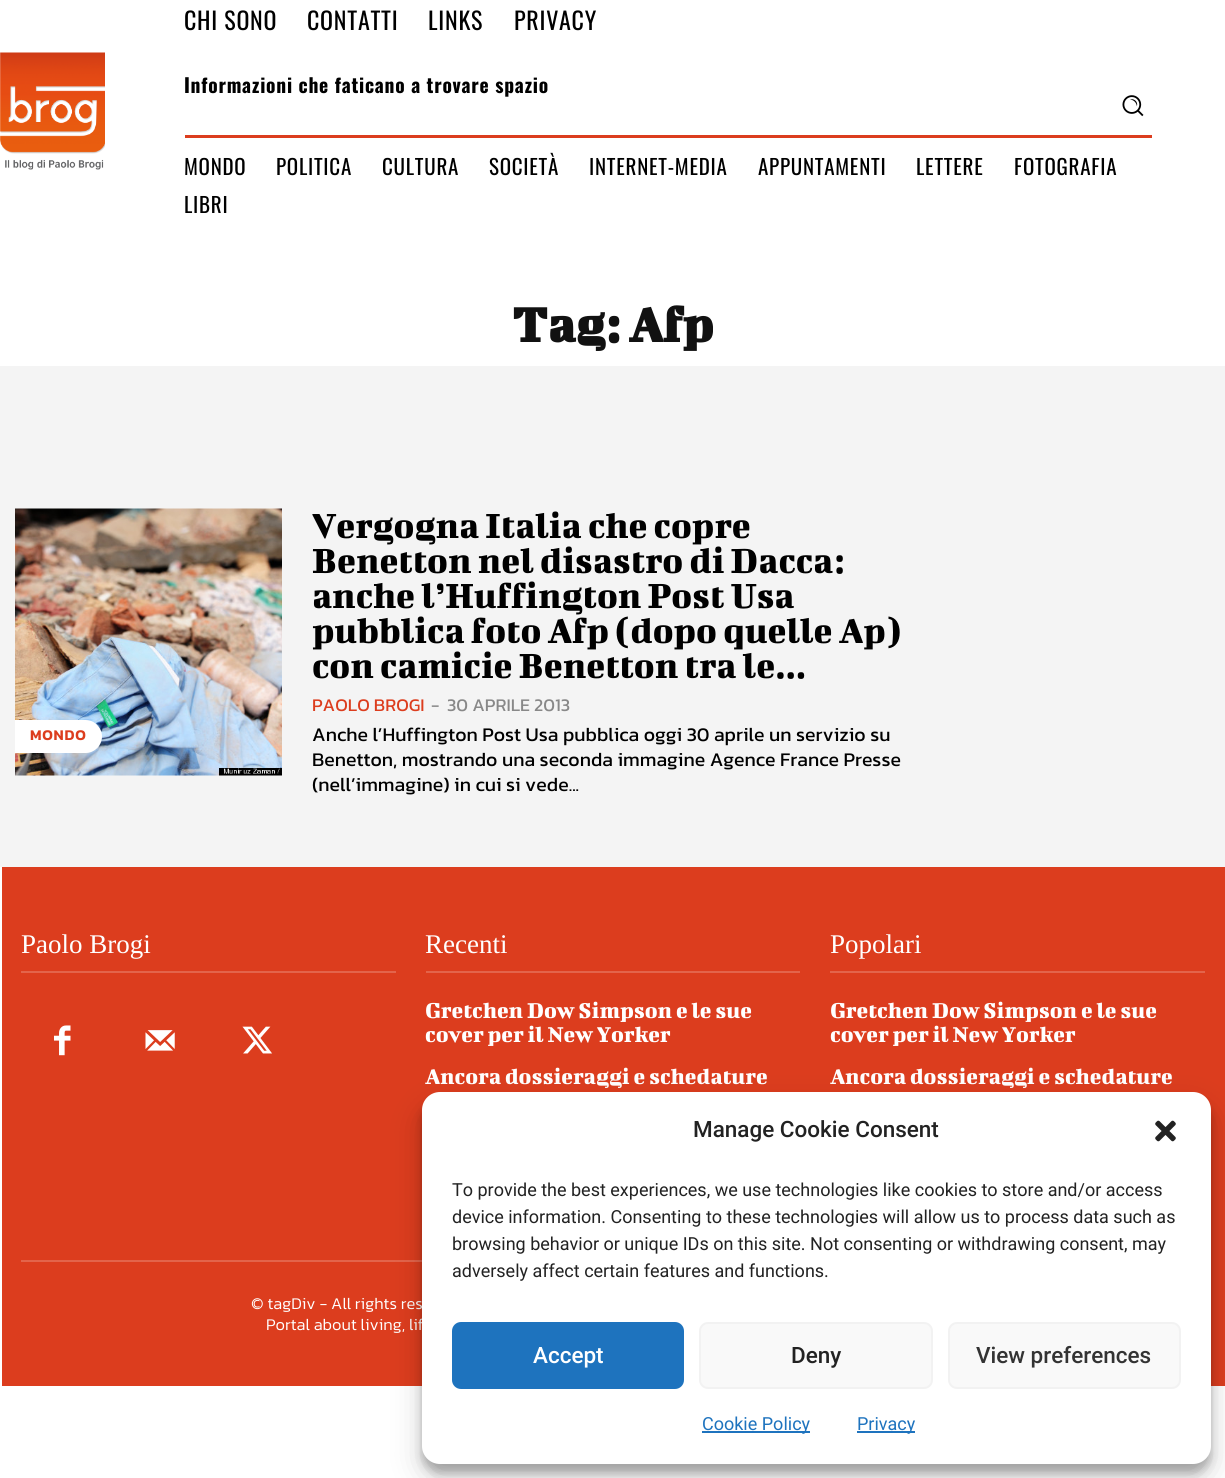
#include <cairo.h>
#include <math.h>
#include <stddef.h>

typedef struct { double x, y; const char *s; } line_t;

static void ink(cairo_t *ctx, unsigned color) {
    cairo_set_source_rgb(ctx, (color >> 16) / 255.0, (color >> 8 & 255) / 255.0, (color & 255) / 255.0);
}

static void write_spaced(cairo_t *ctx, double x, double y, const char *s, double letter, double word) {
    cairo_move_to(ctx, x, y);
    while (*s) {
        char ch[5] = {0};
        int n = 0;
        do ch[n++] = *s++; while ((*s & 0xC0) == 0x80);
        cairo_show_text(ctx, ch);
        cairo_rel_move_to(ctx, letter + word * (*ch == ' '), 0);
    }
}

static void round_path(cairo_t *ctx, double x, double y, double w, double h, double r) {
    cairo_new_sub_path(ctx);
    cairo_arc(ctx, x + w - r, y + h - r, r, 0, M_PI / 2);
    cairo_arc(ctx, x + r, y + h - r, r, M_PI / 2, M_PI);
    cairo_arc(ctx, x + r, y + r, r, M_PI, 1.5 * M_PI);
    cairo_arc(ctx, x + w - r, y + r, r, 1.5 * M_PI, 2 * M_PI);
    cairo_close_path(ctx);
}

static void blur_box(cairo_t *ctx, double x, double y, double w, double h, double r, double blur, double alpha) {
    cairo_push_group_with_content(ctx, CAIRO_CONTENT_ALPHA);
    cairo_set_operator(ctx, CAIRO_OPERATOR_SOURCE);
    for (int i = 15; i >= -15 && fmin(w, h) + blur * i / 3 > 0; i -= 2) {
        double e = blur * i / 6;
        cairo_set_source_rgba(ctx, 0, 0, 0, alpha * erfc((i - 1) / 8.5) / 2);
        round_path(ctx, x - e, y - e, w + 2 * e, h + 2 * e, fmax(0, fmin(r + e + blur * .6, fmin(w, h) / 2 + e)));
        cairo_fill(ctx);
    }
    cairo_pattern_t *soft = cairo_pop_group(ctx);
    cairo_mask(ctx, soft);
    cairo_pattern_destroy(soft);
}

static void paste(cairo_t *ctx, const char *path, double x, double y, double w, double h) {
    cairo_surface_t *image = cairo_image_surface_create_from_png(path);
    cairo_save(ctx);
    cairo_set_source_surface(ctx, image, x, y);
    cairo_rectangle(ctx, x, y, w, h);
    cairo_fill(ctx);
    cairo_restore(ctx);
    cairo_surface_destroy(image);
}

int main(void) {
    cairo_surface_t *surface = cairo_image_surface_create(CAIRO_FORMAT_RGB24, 1225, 1478);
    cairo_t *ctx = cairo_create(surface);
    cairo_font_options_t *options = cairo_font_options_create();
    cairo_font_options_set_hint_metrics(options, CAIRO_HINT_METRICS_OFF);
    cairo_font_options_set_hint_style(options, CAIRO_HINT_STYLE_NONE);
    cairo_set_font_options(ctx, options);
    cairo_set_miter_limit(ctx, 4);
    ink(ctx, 0xFFFFFF);
    cairo_paint(ctx);
    paste(ctx, "media/1.png", 0, 52, 105, 118);
    cairo_select_font_face(ctx, "Oswald", CAIRO_FONT_SLANT_NORMAL, CAIRO_FONT_WEIGHT_NORMAL);
    cairo_set_font_size(ctx, 24);
    ink(ctx, 0x000000);
    {
        static const line_t items[] = {
            {184, 30, "CHI SONO"},
            {307, 30, "CONTATTI"},
            {428, 30, "LINKS"},
            {514, 30, "PRIVACY"},
        };
        for (size_t i = 0; i < sizeof items / sizeof *items; i++) {
            write_spaced(ctx, items[i].x, items[i].y, items[i].s, 0.75, 0);
        }
    }
    cairo_select_font_face(ctx, "Oswald", CAIRO_FONT_SLANT_NORMAL, CAIRO_FONT_WEIGHT_BOLD);
    cairo_set_font_size(ctx, 19.5);
    write_spaced(ctx, 184, 93, "Informazioni che faticano a trovare spazio", 0.75, 0);
    paste(ctx, "media/2.png", 1122, 95, 22, 22);
    ink(ctx, 0xDC3D1E);
    cairo_rectangle(ctx, 185, 135, 967, 3);
    cairo_fill(ctx);
    cairo_select_font_face(ctx, "Oswald", CAIRO_FONT_SLANT_NORMAL, CAIRO_FONT_WEIGHT_NORMAL);
    cairo_set_font_size(ctx, 21);
    ink(ctx, 0x000000);
    {
        static const line_t items[] = {
            {184, 175, "MONDO"},
            {276, 175, "POLITICA"},
            {382, 175, "CULTURA"},
            {489, 175, "SOCIETÀ"},
            {589, 175, "INTERNET-MEDIA"},
            {758, 175, "APPUNTAMENTI"},
            {916, 175, "LETTERE"},
            {1014, 175, "FOTOGRAFIA"},
            {184, 213, "LIBRI"},
        };
        for (size_t i = 0; i < sizeof items / sizeof *items; i++) {
            write_spaced(ctx, items[i].x, items[i].y, items[i].s, 0.75, 0);
        }
    }
    cairo_select_font_face(ctx, "Bigshot One", CAIRO_FONT_SLANT_NORMAL, CAIRO_FONT_WEIGHT_BOLD);
    cairo_set_font_size(ctx, 54);
    ink(ctx, 0x111111);
    cairo_move_to(ctx, 512, 342);
    cairo_show_text(ctx, "Tag: Afp");
    ink(ctx, 0xF4F4F4);
    cairo_rectangle(ctx, 0, 366, 1225, 501);
    cairo_fill(ctx);
    paste(ctx, "media/3.png", 15, 508, 267, 268);
    ink(ctx, 0xFFFFFF);
    cairo_new_path(ctx);
    cairo_move_to(ctx, 15, 720);
    cairo_line_to(ctx, 85.5, 720);
    cairo_curve_to(ctx, 94.5, 720, 102, 727.5, 102, 736.5);
    cairo_curve_to(ctx, 102, 745.5, 94.5, 753, 85.5, 753);
    cairo_line_to(ctx, 15, 753);
    cairo_close_path(ctx);
    cairo_fill(ctx);
    cairo_select_font_face(ctx, "Kanit SemiBold", CAIRO_FONT_SLANT_NORMAL, CAIRO_FONT_WEIGHT_NORMAL);
    cairo_set_font_size(ctx, 15);
    ink(ctx, 0xDC3D1E);
    write_spaced(ctx, 30, 740, "MONDO", 0.75, 0);
    cairo_select_font_face(ctx, "Bigshot One", CAIRO_FONT_SLANT_NORMAL, CAIRO_FONT_WEIGHT_NORMAL);
    cairo_set_font_size(ctx, 39);
    ink(ctx, 0x000000);
    {
        static const line_t items[] = {
            {312, 538, "Vergogna Italia che copre"},
            {312, 573, "Benetton nel disastro di Dacca:"},
            {312, 608, "anche l’Huffington Post Usa"},
            {312, 643, "pubblica foto Afp (dopo quelle Ap)"},
            {312, 678, "con camicie Benetton tra le..."},
        };
        for (size_t i = 0; i < sizeof items / sizeof *items; i++) {
            cairo_move_to(ctx, items[i].x, items[i].y);
            cairo_show_text(ctx, items[i].s);
        }
    }
    cairo_select_font_face(ctx, "Kanit", CAIRO_FONT_SLANT_NORMAL, CAIRO_FONT_WEIGHT_NORMAL);
    cairo_set_font_size(ctx, 18);
    ink(ctx, 0xDC3D1E);
    cairo_move_to(ctx, 312, 711);
    cairo_show_text(ctx, "PAOLO BROGI");
    ink(ctx, 0x888888);
    cairo_move_to(ctx, 431, 711);
    cairo_show_text(ctx, "-");
    cairo_move_to(ctx, 447, 711);
    cairo_show_text(ctx, "30 APRILE 2013");
    cairo_set_font_size(ctx, 19.5);
    ink(ctx, 0x000000);
    {
        static const line_t items[] = {
            {312, 741, "Anche l’Huffington Post Usa pubblica oggi 30 aprile un servizio su"},
            {312, 766, "Benetton, mostrando una seconda immagine Agence France Presse"},
            {312, 791, "(nell’immagine) in cui si vede..."},
        };
        for (size_t i = 0; i < sizeof items / sizeof *items; i++) {
            cairo_move_to(ctx, items[i].x, items[i].y);
            cairo_show_text(ctx, items[i].s);
        }
    }
    ink(ctx, 0xDC3D1E);
    cairo_rectangle(ctx, 2, 867, 1223, 519);
    cairo_fill(ctx);
    ink(ctx, 0xE3644B);
    cairo_rectangle(ctx, 21, 971, 375, 2);
    cairo_fill(ctx);
    cairo_select_font_face(ctx, "Liberation Serif", CAIRO_FONT_SLANT_NORMAL, CAIRO_FONT_WEIGHT_NORMAL);
    cairo_set_font_size(ctx, 27);
    ink(ctx, 0xFFFFFF);
    cairo_move_to(ctx, 21, 953);
    cairo_show_text(ctx, "Paolo Brogi");
    paste(ctx, "media/4.png", 54, 1025, 17, 31);
    paste(ctx, "media/5.png", 145, 1030, 30, 21);
    paste(ctx, "media/6.png", 242, 1026, 30, 28);
    ink(ctx, 0xE3644B);
    cairo_rectangle(ctx, 426, 971, 374, 2);
    cairo_fill(ctx);
    ink(ctx, 0xFFFFFF);
    cairo_move_to(ctx, 425, 953);
    cairo_show_text(ctx, "Recenti");
    cairo_select_font_face(ctx, "Bigshot One", CAIRO_FONT_SLANT_NORMAL, CAIRO_FONT_WEIGHT_NORMAL);
    cairo_set_font_size(ctx, 24);
    {
        static const line_t items[] = {
            {425, 1018, "Gretchen Dow Simpson e le sue"},
            {425, 1042, "cover per il New Yorker"},
            {425, 1084, "Ancora dossieraggi e schedature"},
        };
        for (size_t i = 0; i < sizeof items / sizeof *items; i++) {
            cairo_move_to(ctx, items[i].x, items[i].y);
            cairo_show_text(ctx, items[i].s);
        }
    }
    ink(ctx, 0xE3644B);
    cairo_rectangle(ctx, 830, 971, 375, 2);
    cairo_fill(ctx);
    cairo_select_font_face(ctx, "Liberation Serif", CAIRO_FONT_SLANT_NORMAL, CAIRO_FONT_WEIGHT_NORMAL);
    cairo_set_font_size(ctx, 27);
    ink(ctx, 0xFFFFFF);
    cairo_move_to(ctx, 830, 953);
    cairo_show_text(ctx, "Popolari");
    cairo_select_font_face(ctx, "Bigshot One", CAIRO_FONT_SLANT_NORMAL, CAIRO_FONT_WEIGHT_NORMAL);
    cairo_set_font_size(ctx, 24);
    {
        static const line_t items[] = {
            {830, 1018, "Gretchen Dow Simpson e le sue"},
            {830, 1042, "cover per il New Yorker"},
            {830, 1084, "Ancora dossieraggi e schedature"},
        };
        for (size_t i = 0; i < sizeof items / sizeof *items; i++) {
            cairo_move_to(ctx, items[i].x, items[i].y);
            cairo_show_text(ctx, items[i].s);
        }
    }
    ink(ctx, 0xE3644B);
    cairo_rectangle(ctx, 21, 1260, 401, 2);
    cairo_fill(ctx);
    cairo_select_font_face(ctx, "Kanit Light", CAIRO_FONT_SLANT_NORMAL, CAIRO_FONT_WEIGHT_NORMAL);
    cairo_set_font_size(ctx, 16.5);
    ink(ctx, 0xFFFFFF);
    cairo_move_to(ctx, 251, 1309);
    cairo_show_text(ctx, "© tagDiv - All rights res");
    cairo_move_to(ctx, 266, 1330);
    cairo_show_text(ctx, "Portal about living, lif");
    ink(ctx, 0x000000);
    blur_box(ctx, 422, 1101, 789, 372, 18, 4.5, 0.23);
    blur_box(ctx, 422, 1107, 789, 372, 18, 15, 0.19);
    ink(ctx, 0xFFFFFF);
    round_path(ctx, 422, 1092, 789, 372, 18);
    cairo_fill(ctx);
    cairo_select_font_face(ctx, "Roboto Medium", CAIRO_FONT_SLANT_NORMAL, CAIRO_FONT_WEIGHT_NORMAL);
    cairo_set_font_size(ctx, 22.5);
    ink(ctx, 0x222222);
    cairo_move_to(ctx, 693, 1137);
    cairo_show_text(ctx, "Manage Cookie Consent");
    paste(ctx, "media/7.png", 1155, 1120, 21, 22);
    cairo_select_font_face(ctx, "Roboto", CAIRO_FONT_SLANT_NORMAL, CAIRO_FONT_WEIGHT_NORMAL);
    cairo_set_font_size(ctx, 18);
    {
        static const line_t items[] = {
            {452, 1196, "To provide the best experiences, we use technologies like cookies to store and/or access"},
            {452, 1223, "device information. Consenting to these technologies will allow us to process data such as"},
            {452, 1250, "browsing behavior or unique IDs on this site. Not consenting or withdrawing consent, may"},
            {452, 1277, "adversely affect certain features and functions."},
        };
        for (size_t i = 0; i < sizeof items / sizeof *items; i++) {
            cairo_move_to(ctx, items[i].x, items[i].y);
            cairo_show_text(ctx, items[i].s);
        }
    }
    ink(ctx, 0x1E73BE);
    round_path(ctx, 453, 1323, 230, 65, 8);
    cairo_fill_preserve(ctx);
    cairo_stroke(ctx);
    cairo_select_font_face(ctx, "Roboto Medium", CAIRO_FONT_SLANT_NORMAL, CAIRO_FONT_WEIGHT_NORMAL);
    cairo_set_font_size(ctx, 22.5);
    ink(ctx, 0xFFFFFF);
    cairo_move_to(ctx, 533, 1363);
    cairo_show_text(ctx, "Accept");
    ink(ctx, 0xF9F9F9);
    round_path(ctx, 700, 1323, 232, 65, 8);
    cairo_fill_preserve(ctx);
    ink(ctx, 0xF2F2F2);
    cairo_stroke(ctx);
    ink(ctx, 0x222222);
    cairo_move_to(ctx, 791, 1363);
    cairo_show_text(ctx, "Deny");
    ink(ctx, 0xF9F9F9);
    round_path(ctx, 949, 1323, 231, 65, 8);
    cairo_fill_preserve(ctx);
    ink(ctx, 0xF2F2F2);
    cairo_stroke(ctx);
    ink(ctx, 0x333333);
    cairo_move_to(ctx, 976, 1363);
    cairo_show_text(ctx, "View preferences");
    ink(ctx, 0x1E73BE);
    cairo_rectangle(ctx, 702, 1431, 108, 2);
    cairo_fill(ctx);
    cairo_select_font_face(ctx, "Roboto", CAIRO_FONT_SLANT_NORMAL, CAIRO_FONT_WEIGHT_NORMAL);
    cairo_set_font_size(ctx, 18);
    cairo_move_to(ctx, 702, 1430);
    cairo_show_text(ctx, "Cookie Policy");
    cairo_rectangle(ctx, 857, 1431, 58, 2);
    cairo_fill(ctx);
    cairo_move_to(ctx, 857, 1430);
    cairo_show_text(ctx, "Privacy");
    cairo_surface_write_to_png(surface, "image.png");
    cairo_font_options_destroy(options);
    cairo_destroy(ctx);
    cairo_surface_destroy(surface);
    return 0;
}
